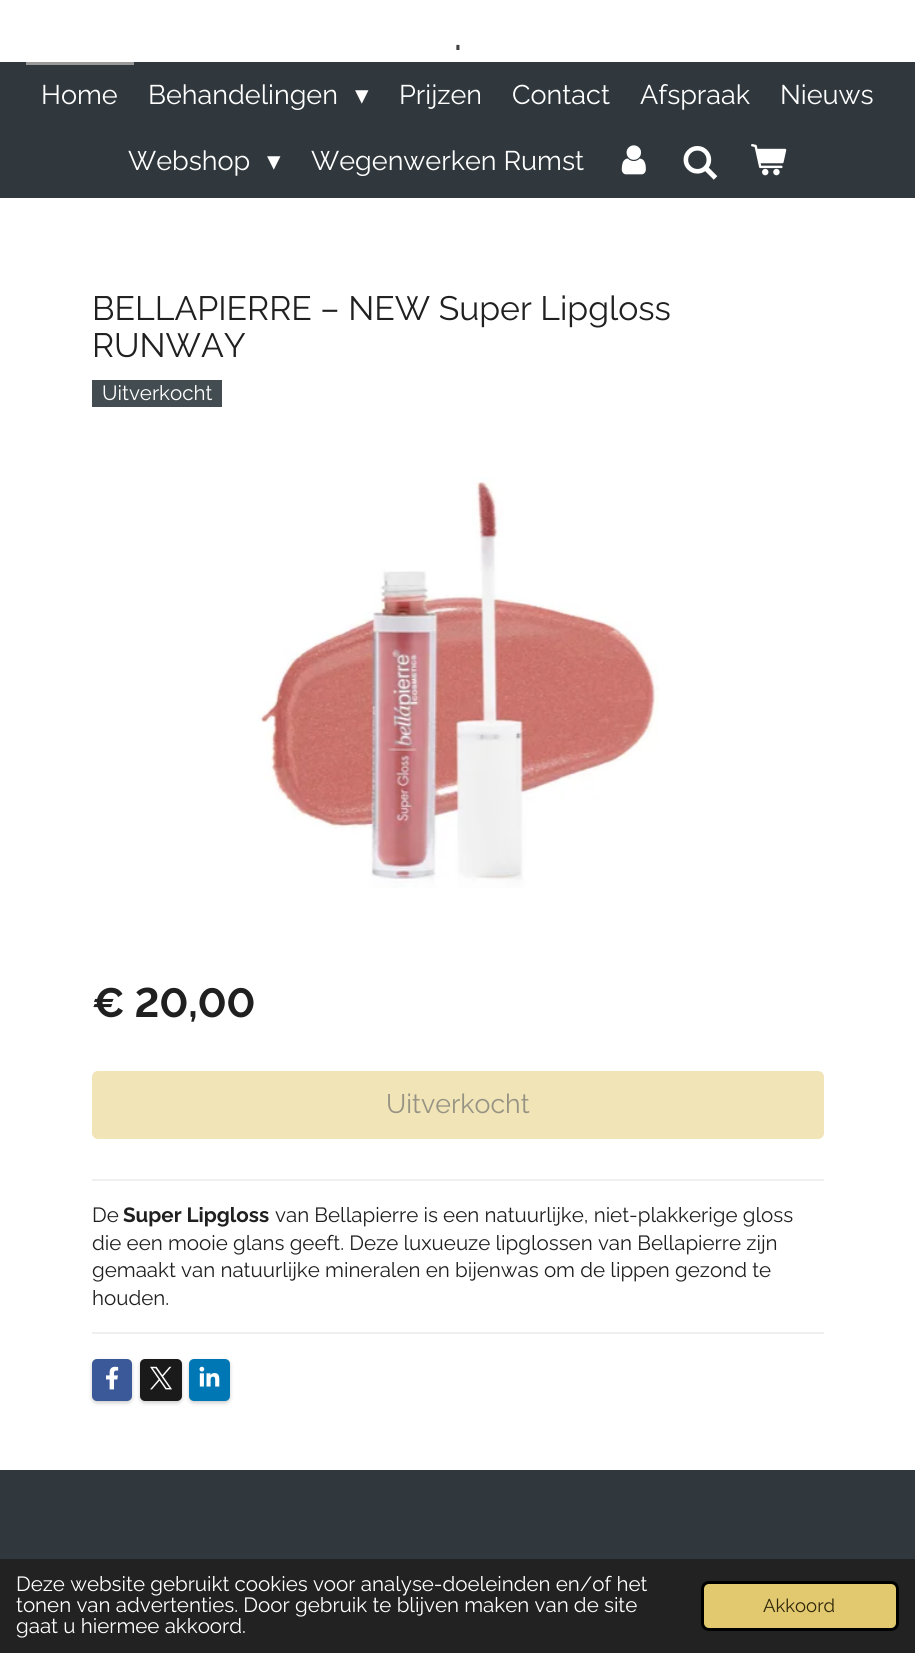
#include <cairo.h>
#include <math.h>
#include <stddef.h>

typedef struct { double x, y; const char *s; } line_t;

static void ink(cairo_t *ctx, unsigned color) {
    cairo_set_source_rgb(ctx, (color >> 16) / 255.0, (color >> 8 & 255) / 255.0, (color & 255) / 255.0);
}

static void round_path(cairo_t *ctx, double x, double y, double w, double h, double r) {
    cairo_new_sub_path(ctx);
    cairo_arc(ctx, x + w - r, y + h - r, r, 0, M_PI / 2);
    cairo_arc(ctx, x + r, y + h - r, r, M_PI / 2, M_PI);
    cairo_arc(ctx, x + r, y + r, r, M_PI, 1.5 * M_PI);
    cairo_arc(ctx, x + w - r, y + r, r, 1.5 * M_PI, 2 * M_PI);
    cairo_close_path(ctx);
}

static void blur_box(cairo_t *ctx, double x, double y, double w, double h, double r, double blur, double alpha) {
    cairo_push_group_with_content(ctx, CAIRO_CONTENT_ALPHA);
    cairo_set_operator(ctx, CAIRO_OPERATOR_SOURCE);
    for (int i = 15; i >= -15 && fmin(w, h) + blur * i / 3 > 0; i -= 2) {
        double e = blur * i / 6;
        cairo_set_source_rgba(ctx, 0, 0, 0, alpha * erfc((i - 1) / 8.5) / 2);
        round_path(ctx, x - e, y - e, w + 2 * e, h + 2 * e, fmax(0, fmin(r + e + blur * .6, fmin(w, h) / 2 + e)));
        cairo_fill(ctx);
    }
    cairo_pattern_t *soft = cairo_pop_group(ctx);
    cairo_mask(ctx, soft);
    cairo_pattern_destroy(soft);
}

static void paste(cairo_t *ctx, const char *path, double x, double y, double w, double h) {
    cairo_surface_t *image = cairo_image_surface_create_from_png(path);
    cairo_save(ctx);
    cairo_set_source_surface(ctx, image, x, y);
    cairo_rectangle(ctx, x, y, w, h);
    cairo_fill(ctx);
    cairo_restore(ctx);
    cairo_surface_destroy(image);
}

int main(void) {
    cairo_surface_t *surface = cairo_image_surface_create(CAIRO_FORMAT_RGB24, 915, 1653);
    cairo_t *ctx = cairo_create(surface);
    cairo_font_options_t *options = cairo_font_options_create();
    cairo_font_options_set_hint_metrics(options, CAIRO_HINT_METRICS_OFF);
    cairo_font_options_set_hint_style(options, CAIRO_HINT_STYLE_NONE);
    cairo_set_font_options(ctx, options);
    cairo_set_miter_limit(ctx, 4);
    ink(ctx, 0xFFFFFF);
    cairo_paint(ctx);
    cairo_select_font_face(ctx, "Raleway", CAIRO_FONT_SLANT_NORMAL, CAIRO_FONT_WEIGHT_NORMAL);
    cairo_set_font_size(ctx, 52);
    ink(ctx, 0x424242);
    cairo_move_to(ctx, 453, 50);
    cairo_show_text(ctx, ".");
    ink(ctx, 0x30383D);
    cairo_rectangle(ctx, 0, 62, 915, 136);
    cairo_fill(ctx);
    ink(ctx, 0x999999);
    cairo_rectangle(ctx, 26, 62, 108, 3);
    cairo_fill(ctx);
    cairo_set_font_size(ctx, 27);
    ink(ctx, 0xFFFFFF);
    cairo_move_to(ctx, 41, 104);
    cairo_show_text(ctx, "Home");
    cairo_move_to(ctx, 148, 104);
    cairo_show_text(ctx, "Behandelingen");
    cairo_select_font_face(ctx, "DejaVu Sans", CAIRO_FONT_SLANT_NORMAL, CAIRO_FONT_WEIGHT_NORMAL);
    cairo_move_to(ctx, 355, 104);
    cairo_show_text(ctx, "▾");
    cairo_select_font_face(ctx, "Raleway", CAIRO_FONT_SLANT_NORMAL, CAIRO_FONT_WEIGHT_NORMAL);
    {
        static const line_t items[] = {
            {399, 104, "Prijzen"},
            {512, 104, "Contact"},
            {640, 104, "Afspraak"},
            {780, 104, "Nieuws"},
            {128, 170, "Webshop"},
        };
        for (size_t i = 0; i < sizeof items / sizeof *items; i++) {
            cairo_move_to(ctx, items[i].x, items[i].y);
            cairo_show_text(ctx, items[i].s);
        }
    }
    cairo_select_font_face(ctx, "DejaVu Sans", CAIRO_FONT_SLANT_NORMAL, CAIRO_FONT_WEIGHT_NORMAL);
    cairo_move_to(ctx, 267, 170);
    cairo_show_text(ctx, "▾");
    cairo_select_font_face(ctx, "Raleway", CAIRO_FONT_SLANT_NORMAL, CAIRO_FONT_WEIGHT_NORMAL);
    cairo_move_to(ctx, 311, 170);
    cairo_show_text(ctx, "Wegenwerken Rumst");
    paste(ctx, "media/1.png", 621, 145, 25, 30);
    paste(ctx, "media/2.png", 683, 146, 35, 34);
    paste(ctx, "media/3.png", 751, 144, 36, 32);
    cairo_set_font_size(ctx, 33.75);
    ink(ctx, 0x202020);
    cairo_move_to(ctx, 92, 320);
    cairo_show_text(ctx, "BELLAPIERRE – NEW Super Lipgloss");
    cairo_move_to(ctx, 92, 357);
    cairo_show_text(ctx, "RUNWAY");
    ink(ctx, 0x424C51);
    cairo_rectangle(ctx, 92, 380, 130, 27);
    cairo_fill(ctx);
    cairo_set_font_size(ctx, 20.55);
    ink(ctx, 0xFFFFFF);
    cairo_move_to(ctx, 102, 400);
    cairo_show_text(ctx, "Uitverkocht");
    paste(ctx, "media/4.png", 257, 477, 402, 411);
    cairo_select_font_face(ctx, "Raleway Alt", CAIRO_FONT_SLANT_NORMAL, CAIRO_FONT_WEIGHT_BOLD);
    cairo_set_font_size(ctx, 41);
    ink(ctx, 0x202020);
    cairo_move_to(ctx, 92, 1017);
    cairo_show_text(ctx, "€ 20,00");
    ink(ctx, 0xF1E4B7);
    round_path(ctx, 92, 1071, 732, 68, 6);
    cairo_fill(ctx);
    cairo_select_font_face(ctx, "Raleway", CAIRO_FONT_SLANT_NORMAL, CAIRO_FONT_WEIGHT_NORMAL);
    cairo_set_font_size(ctx, 26.75);
    ink(ctx, 0x979384);
    cairo_move_to(ctx, 386, 1113);
    cairo_show_text(ctx, "Uitverkocht");
    ink(ctx, 0xEFEFEF);
    cairo_rectangle(ctx, 92, 1179, 732, 2);
    cairo_fill(ctx);
    cairo_set_font_size(ctx, 20.55);
    ink(ctx, 0x202020);
    cairo_move_to(ctx, 92, 1222);
    cairo_show_text(ctx, "De");
    cairo_select_font_face(ctx, "Raleway", CAIRO_FONT_SLANT_NORMAL, CAIRO_FONT_WEIGHT_BOLD);
    cairo_move_to(ctx, 123, 1222);
    cairo_show_text(ctx, "Super Lipgloss");
    cairo_select_font_face(ctx, "Raleway", CAIRO_FONT_SLANT_NORMAL, CAIRO_FONT_WEIGHT_NORMAL);
    {
        static const line_t items[] = {
            {275, 1222, "van Bellapierre is een natuurlijke, niet-plakkerige gloss"},
            {92, 1250, "die een mooie glans geeft. Deze luxueuze lipglossen van Bellapierre zijn"},
            {92, 1277, "gemaakt van natuurlijke mineralen en bijenwas om de lippen gezond te"},
            {92, 1305, "houden."},
        };
        for (size_t i = 0; i < sizeof items / sizeof *items; i++) {
            cairo_move_to(ctx, items[i].x, items[i].y);
            cairo_show_text(ctx, items[i].s);
        }
    }
    ink(ctx, 0xEFEFEF);
    cairo_rectangle(ctx, 92, 1332, 732, 2);
    cairo_fill(ctx);
    ink(ctx, 0x000000);
    blur_box(ctx, 92, 1361, 40, 42, 5, 2, 0.2);
    ink(ctx, 0x3B5998);
    round_path(ctx, 92, 1359, 40, 42, 5);
    cairo_fill(ctx);
    paste(ctx, "media/5.png", 106, 1366, 13, 24);
    ink(ctx, 0x000000);
    blur_box(ctx, 140, 1361, 42, 42, 5, 2, 0.2);
    ink(ctx, 0x1A1A1A);
    round_path(ctx, 140, 1359, 42, 42, 5);
    cairo_fill(ctx);
    paste(ctx, "media/6.png", 150, 1366, 22, 24);
    ink(ctx, 0x000000);
    blur_box(ctx, 189, 1361, 41, 42, 5, 2, 0.2);
    ink(ctx, 0x0077B5);
    round_path(ctx, 189, 1359, 41, 42, 5);
    cairo_fill(ctx);
    paste(ctx, "media/7.png", 199, 1366, 21, 21);
    ink(ctx, 0x30383D);
    cairo_rectangle(ctx, 0, 1470, 915, 89);
    cairo_fill(ctx);
    ink(ctx, 0x222222);
    cairo_rectangle(ctx, 0, 1559, 915, 94);
    cairo_fill(ctx);
    ink(ctx, 0xFFFFFF);
    {
        static const line_t items[] = {
            {16, 1591, "Deze website gebruikt cookies voor analyse-doeleinden en/of het"},
            {16, 1612, "tonen van advertenties. Door gebruik te blijven maken van de site"},
            {16, 1633, "gaat u hiermee akkoord."},
        };
        for (size_t i = 0; i < sizeof items / sizeof *items; i++) {
            cairo_move_to(ctx, items[i].x, items[i].y);
            cairo_show_text(ctx, items[i].s);
        }
    }
    ink(ctx, 0xE2C86F);
    round_path(ctx, 702.5, 1582.5, 195, 47, 6.5);
    cairo_fill_preserve(ctx);
    ink(ctx, 0x000000);
    cairo_set_line_width(ctx, 3);
    cairo_stroke(ctx);
    cairo_set_font_size(ctx, 18.5);
    ink(ctx, 0x2F2709);
    cairo_move_to(ctx, 763, 1612);
    cairo_show_text(ctx, "Akkoord");
    cairo_surface_write_to_png(surface, "image.png");
    cairo_font_options_destroy(options);
    cairo_destroy(ctx);
    cairo_surface_destroy(surface);
    return 0;
}
